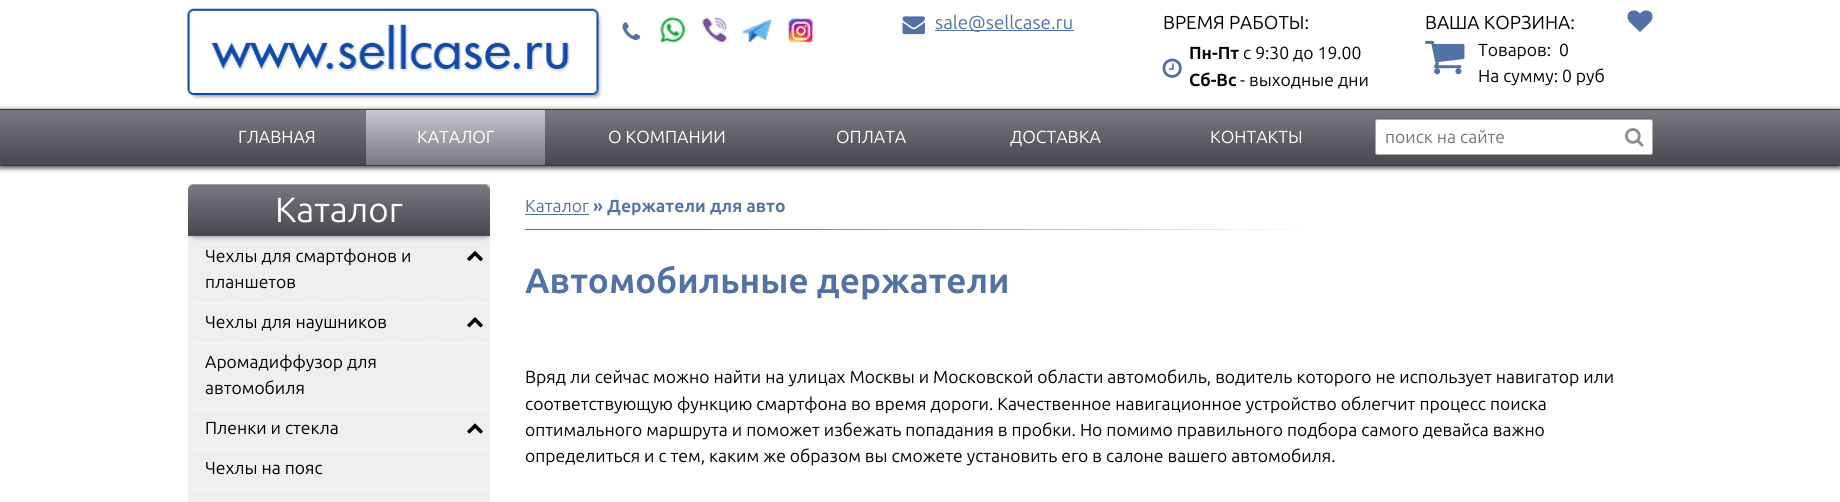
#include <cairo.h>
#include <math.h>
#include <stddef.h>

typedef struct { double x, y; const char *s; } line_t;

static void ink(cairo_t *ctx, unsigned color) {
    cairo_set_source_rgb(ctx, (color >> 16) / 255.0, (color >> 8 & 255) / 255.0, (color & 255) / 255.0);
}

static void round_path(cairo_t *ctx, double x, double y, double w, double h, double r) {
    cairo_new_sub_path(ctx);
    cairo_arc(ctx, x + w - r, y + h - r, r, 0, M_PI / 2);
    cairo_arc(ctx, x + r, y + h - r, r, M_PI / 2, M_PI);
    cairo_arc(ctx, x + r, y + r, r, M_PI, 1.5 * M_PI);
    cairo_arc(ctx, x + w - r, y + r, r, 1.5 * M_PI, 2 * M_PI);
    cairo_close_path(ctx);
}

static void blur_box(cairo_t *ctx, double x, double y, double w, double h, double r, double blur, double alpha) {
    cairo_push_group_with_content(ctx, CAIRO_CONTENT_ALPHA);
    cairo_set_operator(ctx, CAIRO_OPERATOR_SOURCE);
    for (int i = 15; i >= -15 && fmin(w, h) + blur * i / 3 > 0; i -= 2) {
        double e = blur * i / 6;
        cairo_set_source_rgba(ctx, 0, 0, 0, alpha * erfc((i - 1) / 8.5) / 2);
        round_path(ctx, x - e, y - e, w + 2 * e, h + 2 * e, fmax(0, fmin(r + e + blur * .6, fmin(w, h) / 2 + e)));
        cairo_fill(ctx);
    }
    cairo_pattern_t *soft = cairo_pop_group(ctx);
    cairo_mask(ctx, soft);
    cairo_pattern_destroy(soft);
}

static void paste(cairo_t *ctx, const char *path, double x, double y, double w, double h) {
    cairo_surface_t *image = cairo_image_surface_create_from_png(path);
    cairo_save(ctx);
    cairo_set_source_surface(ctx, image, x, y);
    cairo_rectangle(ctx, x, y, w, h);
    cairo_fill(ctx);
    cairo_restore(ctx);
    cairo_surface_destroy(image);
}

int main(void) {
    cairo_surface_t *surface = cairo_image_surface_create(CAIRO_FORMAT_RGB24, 1840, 502);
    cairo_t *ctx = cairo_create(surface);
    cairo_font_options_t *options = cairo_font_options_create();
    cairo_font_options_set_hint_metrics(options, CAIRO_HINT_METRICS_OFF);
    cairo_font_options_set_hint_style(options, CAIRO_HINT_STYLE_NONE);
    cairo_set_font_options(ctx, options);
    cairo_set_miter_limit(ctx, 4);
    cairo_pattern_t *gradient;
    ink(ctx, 0xFFFFFF);
    cairo_paint(ctx);
    paste(ctx, "media/1.png", 187, 8, 415, 92);
    paste(ctx, "media/2.png", 622, 22, 19, 18);
    paste(ctx, "media/3.png", 660, 17, 26, 26);
    paste(ctx, "media/4.png", 702, 17, 25, 26);
    paste(ctx, "media/5.png", 742, 19, 30, 24);
    paste(ctx, "media/6.png", 788, 18, 27, 25);
    paste(ctx, "media/7.png", 902, 16, 23, 19);
    ink(ctx, 0x5171A7);
    cairo_rectangle(ctx, 935, 30, 139, 1);
    cairo_fill(ctx);
    cairo_select_font_face(ctx, "Ubuntu", CAIRO_FONT_SLANT_NORMAL, CAIRO_FONT_WEIGHT_NORMAL);
    cairo_set_font_size(ctx, 18.75);
    cairo_move_to(ctx, 935, 29);
    cairo_show_text(ctx, "sale@sellcase.ru");
    ink(ctx, 0x000000);
    cairo_move_to(ctx, 1163, 29);
    cairo_show_text(ctx, "ВРЕМЯ РАБОТЫ:");
    cairo_select_font_face(ctx, "Ubuntu", CAIRO_FONT_SLANT_NORMAL, CAIRO_FONT_WEIGHT_BOLD);
    cairo_set_font_size(ctx, 17.5);
    cairo_move_to(ctx, 1189, 59);
    cairo_show_text(ctx, "Пн-Пт");
    cairo_select_font_face(ctx, "Ubuntu", CAIRO_FONT_SLANT_NORMAL, CAIRO_FONT_WEIGHT_NORMAL);
    cairo_move_to(ctx, 1243, 59);
    cairo_show_text(ctx, "с 9:30 до 19.00");
    paste(ctx, "media/8.png", 1162, 58, 20, 20);
    cairo_select_font_face(ctx, "Ubuntu", CAIRO_FONT_SLANT_NORMAL, CAIRO_FONT_WEIGHT_BOLD);
    cairo_move_to(ctx, 1189, 86);
    cairo_show_text(ctx, "Сб-Вс");
    cairo_select_font_face(ctx, "Ubuntu", CAIRO_FONT_SLANT_NORMAL, CAIRO_FONT_WEIGHT_NORMAL);
    cairo_move_to(ctx, 1240, 86);
    cairo_show_text(ctx, "- выходные дни");
    cairo_set_font_size(ctx, 18.75);
    cairo_move_to(ctx, 1425, 29);
    cairo_show_text(ctx, "ВАША КОРЗИНА:");
    paste(ctx, "media/9.png", 1425, 40, 40, 35);
    cairo_set_font_size(ctx, 17.5);
    {
        static const line_t items[] = {
            {1478, 56, "Товаров:"},
            {1559, 56, "0"},
            {1478, 82, "На сумму: 0 руб"},
        };
        for (size_t i = 0; i < sizeof items / sizeof *items; i++) {
            cairo_move_to(ctx, items[i].x, items[i].y);
            cairo_show_text(ctx, items[i].s);
        }
    }
    paste(ctx, "media/10.png", 1627, 10, 26, 22);
    ink(ctx, 0x454545);
    blur_box(ctx, 0, 110, 1840, 58, 0, 2.5, 1);
    gradient = cairo_pattern_create_linear(920, 165, 920, 110);
    cairo_pattern_add_color_stop_rgba(gradient, 0, 0.282, 0.275, 0.31, 1);
    cairo_pattern_add_color_stop_rgba(gradient, 1, 0.478, 0.471, 0.51, 1);
    cairo_set_source(ctx, gradient);
    cairo_pattern_destroy(gradient);
    cairo_rectangle(ctx, 0, 110, 1840, 55);
    cairo_fill(ctx);
    ink(ctx, 0x3A3741);
    cairo_rectangle(ctx, 0, 109, 1840, 1);
    cairo_fill(ctx);
    cairo_rectangle(ctx, 0, 165, 1840, 1);
    cairo_fill(ctx);
    ink(ctx, 0xFFFFFF);
    cairo_move_to(ctx, 238, 143);
    cairo_show_text(ctx, "ГЛАВНАЯ");
    gradient = cairo_pattern_create_linear(456, 110, 456, 165);
    cairo_pattern_add_color_stop_rgba(gradient, 0, 0.792, 0.784, 0.816, 1);
    cairo_pattern_add_color_stop_rgba(gradient, 1, 0.478, 0.463, 0.514, 1);
    cairo_set_source(ctx, gradient);
    cairo_pattern_destroy(gradient);
    cairo_rectangle(ctx, 366, 110, 179, 55);
    cairo_fill(ctx);
    ink(ctx, 0xFFFFFF);
    {
        static const line_t items[] = {
            {417, 143, "КАТАЛОГ"},
            {608, 143, "О КОМПАНИИ"},
            {836, 143, "ОПЛАТА"},
            {1010, 143, "ДОСТАВКА"},
            {1210, 143, "КОНТАКТЫ"},
        };
        for (size_t i = 0; i < sizeof items / sizeof *items; i++) {
            cairo_move_to(ctx, items[i].x, items[i].y);
            cairo_show_text(ctx, items[i].s);
        }
    }
    round_path(ctx, 1375.5, 119.5, 277, 35, 2);
    cairo_fill_preserve(ctx);
    ink(ctx, 0xAAAAAA);
    cairo_set_line_width(ctx, 1);
    cairo_stroke(ctx);
    ink(ctx, 0x757575);
    cairo_move_to(ctx, 1385, 143);
    cairo_show_text(ctx, "поиск на сайте");
    paste(ctx, "media/11.png", 1625, 128, 19, 19);
    ink(ctx, 0xEFEFEF);
    cairo_rectangle(ctx, 188, 184, 302, 318);
    cairo_fill(ctx);
    cairo_save(ctx);
    cairo_rectangle(ctx, 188, 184, 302, 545);
    cairo_clip(ctx);
    ink(ctx, 0xAFB0B3);
    blur_box(ctx, 189, 185, 302, 53, 6, 2, 1);
    cairo_restore(ctx);
    gradient = cairo_pattern_create_linear(339, 184, 339, 236);
    cairo_pattern_add_color_stop_rgba(gradient, 0, 0.478, 0.471, 0.51, 1);
    cairo_pattern_add_color_stop_rgba(gradient, 1, 0.282, 0.275, 0.31, 1);
    cairo_set_source(ctx, gradient);
    cairo_pattern_destroy(gradient);
    cairo_new_path(ctx);
    cairo_move_to(ctx, 194, 184);
    cairo_line_to(ctx, 484, 184);
    cairo_curve_to(ctx, 487.5, 184, 490, 186.5, 490, 190);
    cairo_line_to(ctx, 490, 236);
    cairo_line_to(ctx, 188, 236);
    cairo_line_to(ctx, 188, 190);
    cairo_curve_to(ctx, 188, 186.5, 190.5, 184, 194, 184);
    cairo_close_path(ctx);
    cairo_fill(ctx);
    cairo_set_source_rgba(ctx, 1, 1, 1, 0.3);
    cairo_new_path(ctx);
    cairo_move_to(ctx, 194, 185);
    cairo_line_to(ctx, 484, 185);
    cairo_curve_to(ctx, 487, 185, 490, 188, 490, 191);
    cairo_curve_to(ctx, 490, 187, 488, 184, 484, 184);
    cairo_line_to(ctx, 194, 184);
    cairo_curve_to(ctx, 190, 184, 188, 187, 188, 191);
    cairo_curve_to(ctx, 188, 188, 190, 185, 194, 185);
    cairo_close_path(ctx);
    cairo_fill(ctx);
    cairo_set_font_size(ctx, 35);
    ink(ctx, 0xFFFFFF);
    cairo_move_to(ctx, 275, 222);
    cairo_show_text(ctx, "Каталог");
    cairo_new_path(ctx);
    cairo_move_to(ctx, 187.5, 303);
    cairo_line_to(ctx, 490, 303);
    cairo_set_line_width(ctx, 1.2);
    cairo_set_dash(ctx, (double[]){1.25, 1.25}, 2, 0);
    cairo_stroke(ctx);
    cairo_set_font_size(ctx, 17.5);
    ink(ctx, 0x000000);
    cairo_move_to(ctx, 205, 262);
    cairo_show_text(ctx, "Чехлы для смартфонов и");
    cairo_move_to(ctx, 205, 288);
    cairo_show_text(ctx, "планшетов");
    paste(ctx, "media/12.png", 467, 251, 16, 10);
    cairo_new_path(ctx);
    cairo_move_to(ctx, 187.5, 343);
    cairo_line_to(ctx, 490, 343);
    ink(ctx, 0xFFFFFF);
    cairo_stroke(ctx);
    ink(ctx, 0x000000);
    cairo_move_to(ctx, 205, 328);
    cairo_show_text(ctx, "Чехлы для наушников");
    paste(ctx, "media/13.png", 467, 317, 16, 11);
    cairo_new_path(ctx);
    cairo_move_to(ctx, 187.5, 409.5);
    cairo_line_to(ctx, 490, 409.5);
    ink(ctx, 0xFFFFFF);
    cairo_stroke(ctx);
    ink(ctx, 0x000000);
    cairo_move_to(ctx, 205, 368);
    cairo_show_text(ctx, "Аромадиффузор для");
    cairo_move_to(ctx, 205, 394);
    cairo_show_text(ctx, "автомобиля");
    cairo_new_path(ctx);
    cairo_move_to(ctx, 187.5, 449.5);
    cairo_line_to(ctx, 490, 449.5);
    ink(ctx, 0xFFFFFF);
    cairo_stroke(ctx);
    ink(ctx, 0x000000);
    cairo_move_to(ctx, 205, 434);
    cairo_show_text(ctx, "Пленки и стекла");
    paste(ctx, "media/14.png", 467, 423, 16, 11);
    cairo_new_path(ctx);
    cairo_move_to(ctx, 187.5, 489.5);
    cairo_line_to(ctx, 490, 489.5);
    ink(ctx, 0xFFFFFF);
    cairo_stroke(ctx);
    ink(ctx, 0x000000);
    cairo_move_to(ctx, 205, 474);
    cairo_show_text(ctx, "Чехлы на пояс");
    ink(ctx, 0x5171A7);
    cairo_move_to(ctx, 525, 212);
    cairo_show_text(ctx, "Каталог");
    cairo_rectangle(ctx, 525, 214, 64, 1);
    cairo_fill(ctx);
    cairo_select_font_face(ctx, "Ubuntu", CAIRO_FONT_SLANT_NORMAL, CAIRO_FONT_WEIGHT_BOLD);
    cairo_move_to(ctx, 593, 212);
    cairo_show_text(ctx, "» Держатели для авто");
    gradient = cairo_pattern_create_linear(525, 229, 1653, 229);
    cairo_pattern_add_color_stop_rgba(gradient, 0, 0.318, 0.443, 0.655, 1);
    cairo_pattern_add_color_stop_rgba(gradient, 0.15, 0.318, 0.443, 0.655, 1);
    cairo_pattern_add_color_stop_rgba(gradient, 0.7, 1, 1, 1, 1);
    cairo_set_source(ctx, gradient);
    cairo_pattern_destroy(gradient);
    cairo_rectangle(ctx, 525, 229, 781, 1);
    cairo_fill(ctx);
    cairo_set_font_size(ctx, 35);
    ink(ctx, 0x5171A7);
    cairo_move_to(ctx, 525, 293);
    cairo_show_text(ctx, "Автомобильные держатели");
    cairo_select_font_face(ctx, "Ubuntu", CAIRO_FONT_SLANT_NORMAL, CAIRO_FONT_WEIGHT_NORMAL);
    cairo_set_font_size(ctx, 17.5);
    ink(ctx, 0x000000);
    {
        static const line_t items[] = {
            {525, 383, "Вряд ли сейчас можно найти на улицах Москвы и Московской области автомобиль, водитель которого не использует навигатор или"},
            {525, 410, "соответствующую функцию смартфона во время дороги. Качественное навигационное устройство облегчит процесс поиска"},
            {525, 436, "оптимального маршрута и поможет избежать попадания в пробки. Но помимо правильного подбора самого девайса важно"},
            {525, 462, "определиться и с тем, каким же образом вы сможете установить его в салоне вашего автомобиля."},
        };
        for (size_t i = 0; i < sizeof items / sizeof *items; i++) {
            cairo_move_to(ctx, items[i].x, items[i].y);
            cairo_show_text(ctx, items[i].s);
        }
    }
    cairo_surface_write_to_png(surface, "image.png");
    cairo_font_options_destroy(options);
    cairo_destroy(ctx);
    cairo_surface_destroy(surface);
    return 0;
}
